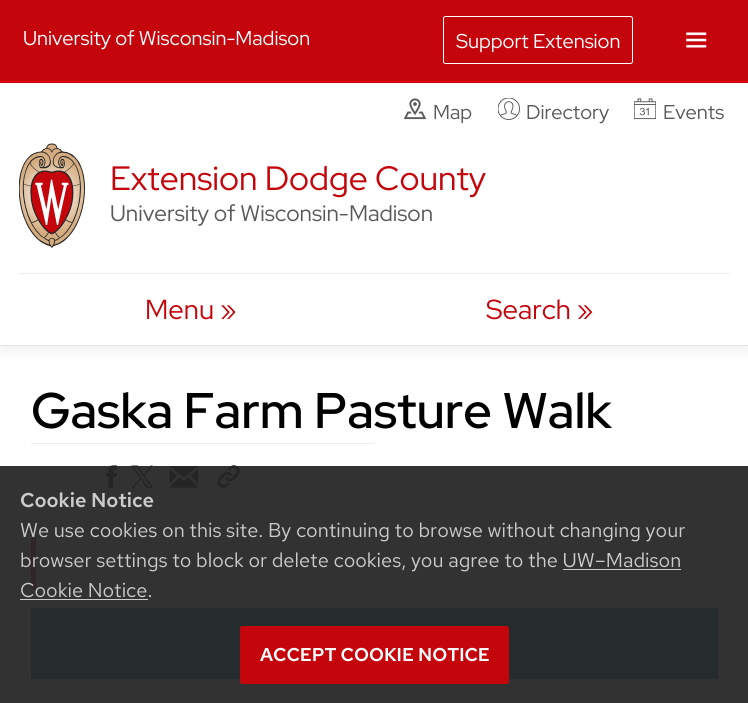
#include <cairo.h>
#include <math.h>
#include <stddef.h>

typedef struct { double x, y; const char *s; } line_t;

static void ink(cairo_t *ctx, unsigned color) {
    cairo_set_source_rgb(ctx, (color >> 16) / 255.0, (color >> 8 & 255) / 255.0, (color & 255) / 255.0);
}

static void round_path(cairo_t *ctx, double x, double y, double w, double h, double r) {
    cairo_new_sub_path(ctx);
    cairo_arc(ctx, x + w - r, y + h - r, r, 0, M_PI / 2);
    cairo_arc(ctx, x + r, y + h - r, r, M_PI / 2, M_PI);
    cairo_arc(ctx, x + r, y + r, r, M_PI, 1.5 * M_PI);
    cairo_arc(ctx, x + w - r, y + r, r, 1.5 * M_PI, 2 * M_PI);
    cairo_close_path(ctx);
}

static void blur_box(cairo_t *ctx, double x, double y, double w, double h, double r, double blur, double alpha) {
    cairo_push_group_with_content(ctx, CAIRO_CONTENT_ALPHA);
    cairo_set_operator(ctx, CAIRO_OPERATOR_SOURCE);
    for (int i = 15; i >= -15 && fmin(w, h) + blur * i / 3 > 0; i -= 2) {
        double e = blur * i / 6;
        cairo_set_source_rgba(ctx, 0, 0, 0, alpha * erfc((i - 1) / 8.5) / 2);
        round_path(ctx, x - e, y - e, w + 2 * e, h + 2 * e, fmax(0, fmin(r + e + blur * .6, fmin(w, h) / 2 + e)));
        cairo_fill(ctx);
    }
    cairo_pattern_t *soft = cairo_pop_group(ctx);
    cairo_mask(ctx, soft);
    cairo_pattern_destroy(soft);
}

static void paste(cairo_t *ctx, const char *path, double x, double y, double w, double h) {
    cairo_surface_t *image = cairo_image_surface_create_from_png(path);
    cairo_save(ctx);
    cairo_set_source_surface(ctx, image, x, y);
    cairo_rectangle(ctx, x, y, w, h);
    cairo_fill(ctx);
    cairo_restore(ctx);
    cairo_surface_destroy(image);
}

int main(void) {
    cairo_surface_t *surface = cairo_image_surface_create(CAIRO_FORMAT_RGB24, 748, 703);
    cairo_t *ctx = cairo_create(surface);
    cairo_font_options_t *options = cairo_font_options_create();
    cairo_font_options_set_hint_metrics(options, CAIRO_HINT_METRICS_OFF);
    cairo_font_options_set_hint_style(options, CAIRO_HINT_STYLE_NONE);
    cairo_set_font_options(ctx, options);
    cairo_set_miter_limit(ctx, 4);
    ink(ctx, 0xFFFFFF);
    cairo_paint(ctx);
    ink(ctx, 0x333233);
    cairo_rectangle(ctx, 0, 466, 748, 237);
    cairo_fill(ctx);
    cairo_save(ctx);
    cairo_rectangle(ctx, 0, 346, 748, 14);
    cairo_clip(ctx);
    ink(ctx, 0xC3C3C3);
    blur_box(ctx, 0, 89, 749, 264, 0, 5.5, 0.2);
    cairo_restore(ctx);
    ink(ctx, 0xC5050C);
    cairo_rectangle(ctx, 0, 0, 748, 83);
    cairo_fill(ctx);
    ink(ctx, 0xE40B10);
    cairo_rectangle(ctx, 0, 81, 748, 1);
    cairo_fill(ctx);
    cairo_select_font_face(ctx, "Red Hat Display", CAIRO_FONT_SLANT_NORMAL, CAIRO_FONT_WEIGHT_NORMAL);
    cairo_set_font_size(ctx, 20);
    ink(ctx, 0xFFFFFF);
    cairo_move_to(ctx, 23, 45);
    cairo_show_text(ctx, "University of Wisconsin-Madison");
    round_path(ctx, 443.5, 16.5, 189, 47, 2);
    cairo_set_line_width(ctx, 1);
    cairo_stroke(ctx);
    cairo_move_to(ctx, 456, 48);
    cairo_show_text(ctx, "Support Extension");
    paste(ctx, "media/1.png", 686, 32, 21, 16);
    ink(ctx, 0xE2E2E2);
    cairo_rectangle(ctx, 0, 345, 748, 1);
    cairo_fill(ctx);
    paste(ctx, "media/2.png", 404, 98, 22, 22);
    ink(ctx, 0x595959);
    cairo_move_to(ctx, 433, 119);
    cairo_show_text(ctx, "Map");
    paste(ctx, "media/3.png", 498, 98, 22, 22);
    cairo_move_to(ctx, 526, 119);
    cairo_show_text(ctx, "Directory");
    paste(ctx, "media/4.png", 634, 98, 22, 22);
    cairo_move_to(ctx, 663, 119);
    cairo_show_text(ctx, "Events");
    ink(ctx, 0xF1EDE8);
    cairo_rectangle(ctx, 19, 273, 711, 1);
    cairo_fill(ctx);
    paste(ctx, "media/5.png", 19, 143, 66, 105);
    cairo_set_font_size(ctx, 33.75);
    ink(ctx, 0xC5050C);
    cairo_move_to(ctx, 110, 190);
    cairo_show_text(ctx, "Extension Dodge County");
    cairo_set_font_size(ctx, 22.5);
    ink(ctx, 0x595959);
    cairo_move_to(ctx, 110, 221);
    cairo_show_text(ctx, "University of Wisconsin-Madison");
    cairo_set_font_size(ctx, 27.5);
    ink(ctx, 0xC5050C);
    cairo_move_to(ctx, 145, 319);
    cairo_show_text(ctx, "Menu »");
    cairo_move_to(ctx, 486, 319);
    cairo_show_text(ctx, "Search »");
    cairo_select_font_face(ctx, "Red Hat Display SemiBold", CAIRO_FONT_SLANT_NORMAL, CAIRO_FONT_WEIGHT_NORMAL);
    cairo_set_font_size(ctx, 50);
    ink(ctx, 0x000000);
    cairo_move_to(ctx, 31, 428);
    cairo_show_text(ctx, "Gaska Farm Pasture Walk");
    ink(ctx, 0xECECEC);
    cairo_rectangle(ctx, 31, 443, 344, 1);
    cairo_fill(ctx);
    paste(ctx, "media/6.png", 105, 465, 12, 23);
    paste(ctx, "media/7.png", 131, 465, 23, 24);
    paste(ctx, "media/8.png", 169, 466, 30, 22);
    paste(ctx, "media/9.png", 217, 465, 23, 23);
    ink(ctx, 0x302529);
    cairo_rectangle(ctx, 31, 538, 5, 51);
    cairo_fill(ctx);
    ink(ctx, 0x262B2E);
    cairo_rectangle(ctx, 31, 608, 687, 71);
    cairo_fill(ctx);
    cairo_select_font_face(ctx, "Red Hat Text SemiBold", CAIRO_FONT_SLANT_NORMAL, CAIRO_FONT_WEIGHT_NORMAL);
    cairo_set_font_size(ctx, 20);
    ink(ctx, 0xCCCCCC);
    cairo_move_to(ctx, 20, 507);
    cairo_show_text(ctx, "Cookie Notice");
    cairo_select_font_face(ctx, "Red Hat Text", CAIRO_FONT_SLANT_NORMAL, CAIRO_FONT_WEIGHT_NORMAL);
    {
        static const line_t items[] = {
            {20, 537, "We use cookies on this site. By continuing to browse without changing your"},
            {20, 567, "browser settings to block or delete cookies, you agree to the UW–Madison"},
            {20, 597, "Cookie Notice."},
        };
        for (size_t i = 0; i < sizeof items / sizeof *items; i++) {
            cairo_move_to(ctx, items[i].x, items[i].y);
            cairo_show_text(ctx, items[i].s);
        }
    }
    cairo_rectangle(ctx, 563, 569, 118, 1);
    cairo_fill(ctx);
    cairo_rectangle(ctx, 20, 599, 128, 1);
    cairo_fill(ctx);
    ink(ctx, 0xC5050C);
    round_path(ctx, 240, 626, 269, 58, 2.5);
    cairo_fill(ctx);
    cairo_select_font_face(ctx, "Red Hat Text SemiBold", CAIRO_FONT_SLANT_NORMAL, CAIRO_FONT_WEIGHT_NORMAL);
    cairo_set_font_size(ctx, 18.5);
    ink(ctx, 0xFFFFFF);
    cairo_move_to(ctx, 260, 661);
    cairo_show_text(ctx, "ACCEPT COOKIE NOTICE");
    cairo_surface_write_to_png(surface, "image.png");
    cairo_font_options_destroy(options);
    cairo_destroy(ctx);
    cairo_surface_destroy(surface);
    return 0;
}
